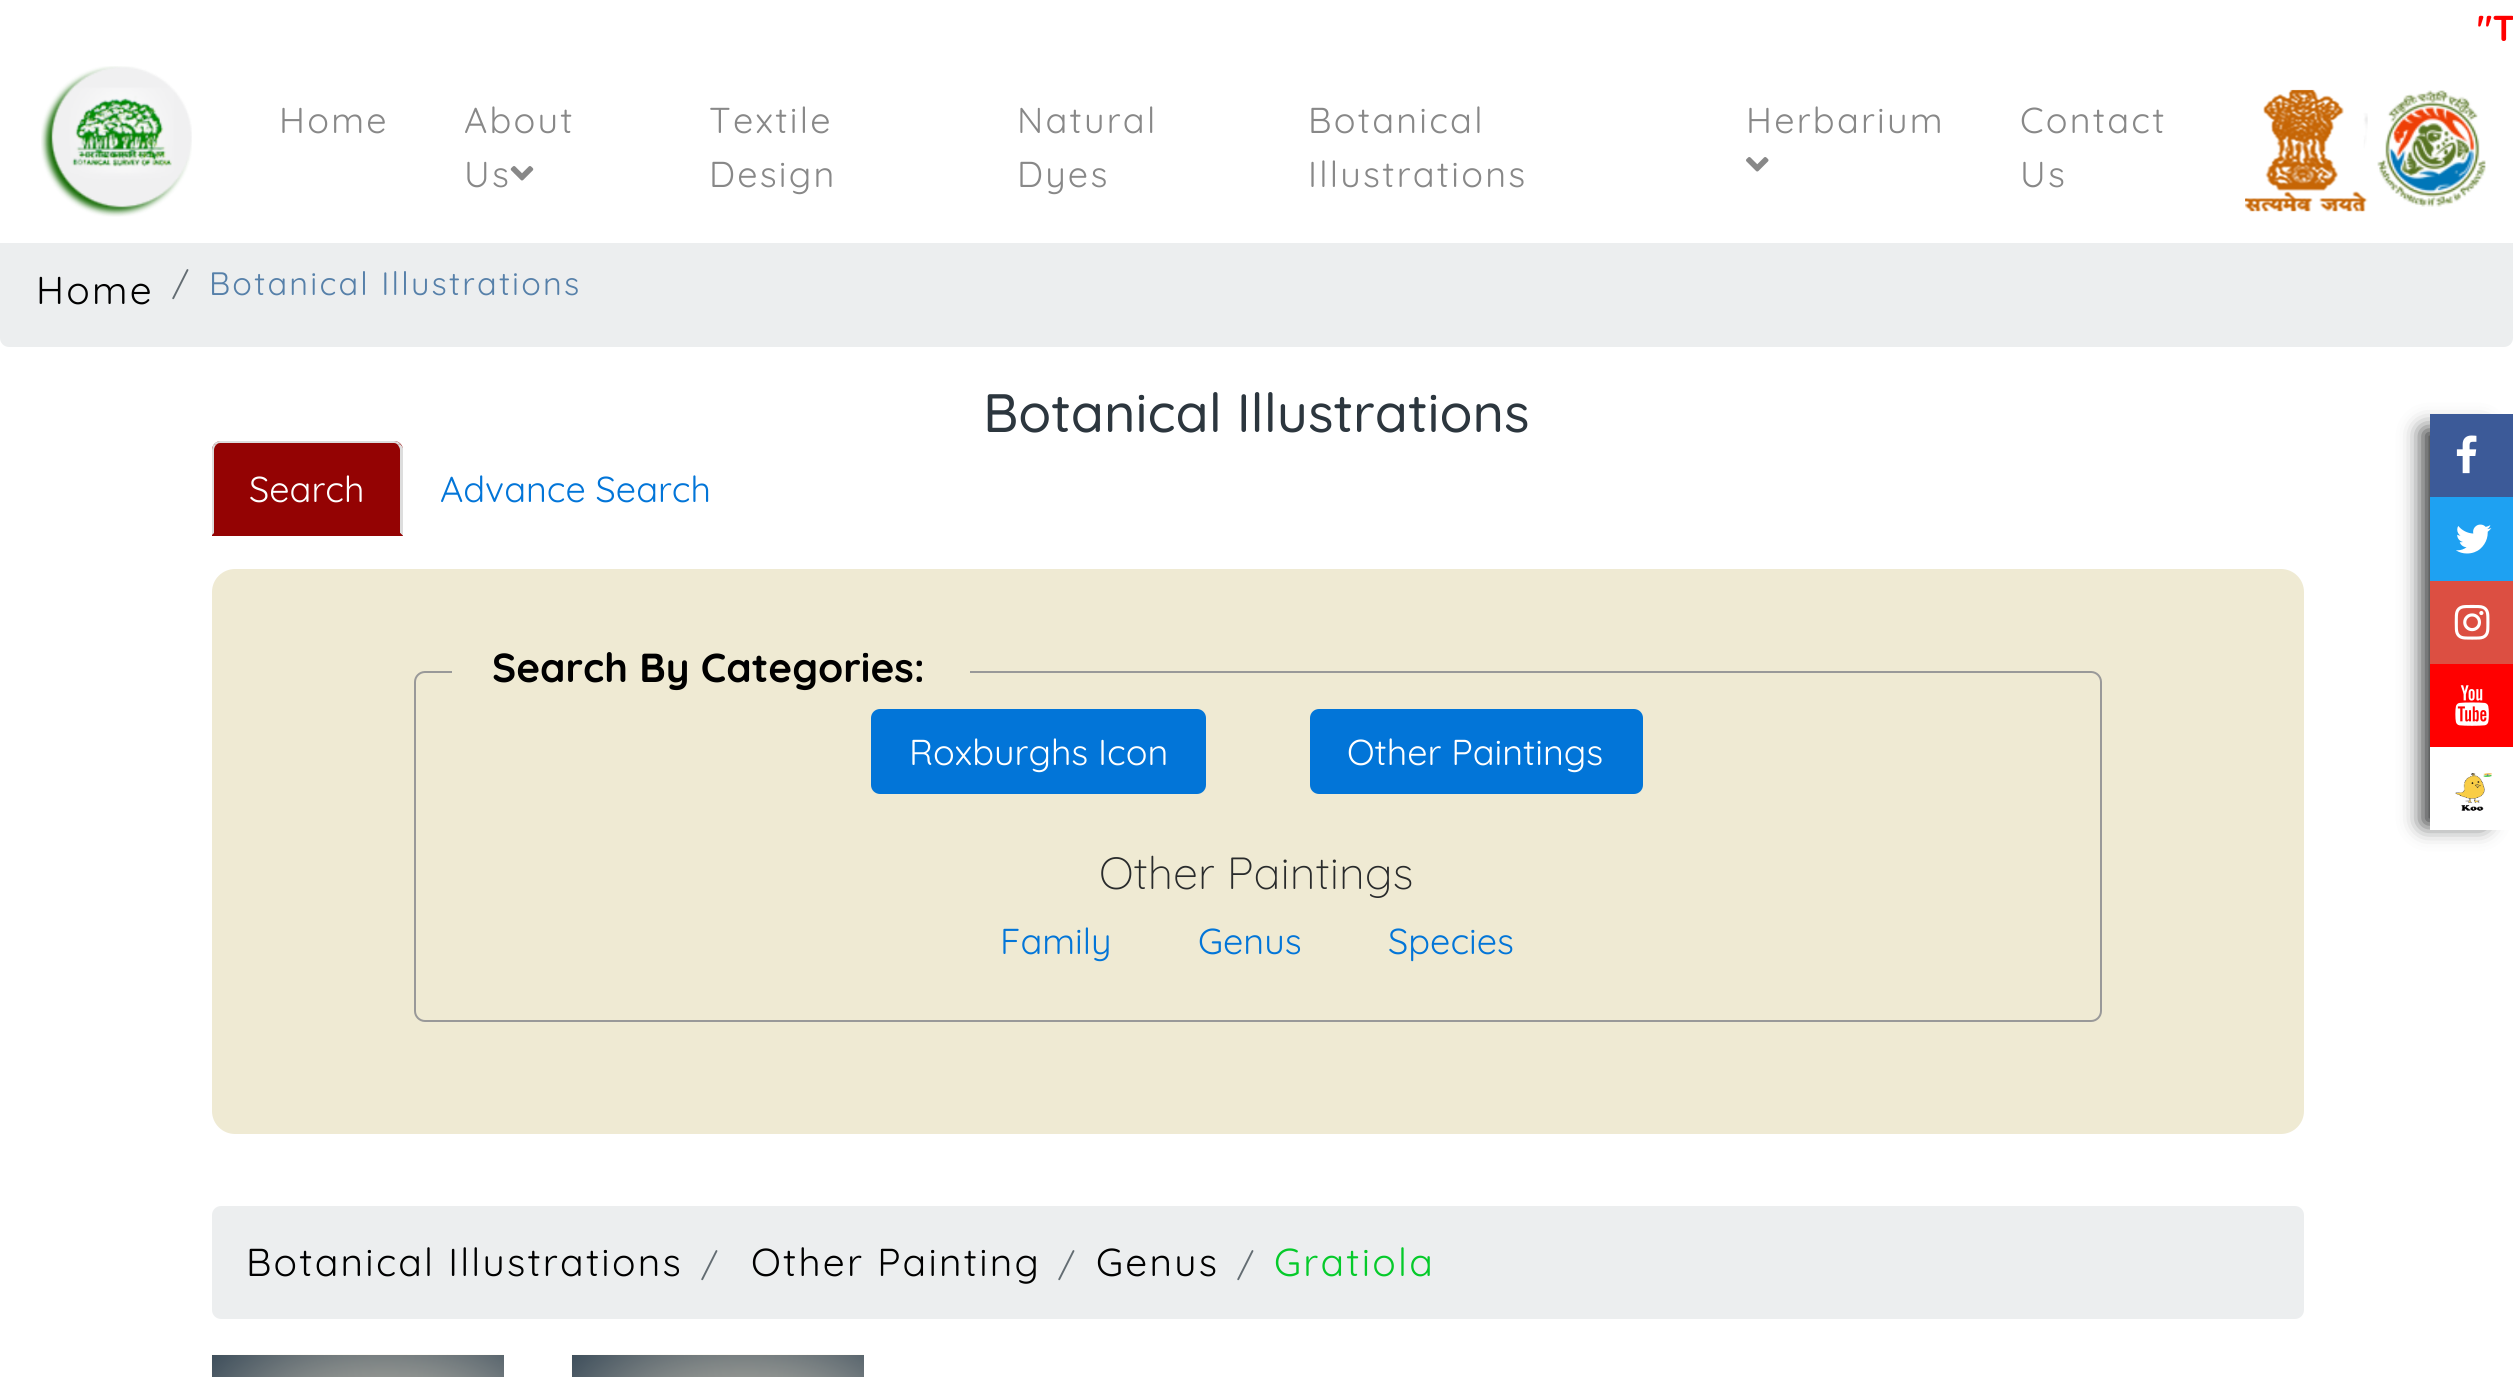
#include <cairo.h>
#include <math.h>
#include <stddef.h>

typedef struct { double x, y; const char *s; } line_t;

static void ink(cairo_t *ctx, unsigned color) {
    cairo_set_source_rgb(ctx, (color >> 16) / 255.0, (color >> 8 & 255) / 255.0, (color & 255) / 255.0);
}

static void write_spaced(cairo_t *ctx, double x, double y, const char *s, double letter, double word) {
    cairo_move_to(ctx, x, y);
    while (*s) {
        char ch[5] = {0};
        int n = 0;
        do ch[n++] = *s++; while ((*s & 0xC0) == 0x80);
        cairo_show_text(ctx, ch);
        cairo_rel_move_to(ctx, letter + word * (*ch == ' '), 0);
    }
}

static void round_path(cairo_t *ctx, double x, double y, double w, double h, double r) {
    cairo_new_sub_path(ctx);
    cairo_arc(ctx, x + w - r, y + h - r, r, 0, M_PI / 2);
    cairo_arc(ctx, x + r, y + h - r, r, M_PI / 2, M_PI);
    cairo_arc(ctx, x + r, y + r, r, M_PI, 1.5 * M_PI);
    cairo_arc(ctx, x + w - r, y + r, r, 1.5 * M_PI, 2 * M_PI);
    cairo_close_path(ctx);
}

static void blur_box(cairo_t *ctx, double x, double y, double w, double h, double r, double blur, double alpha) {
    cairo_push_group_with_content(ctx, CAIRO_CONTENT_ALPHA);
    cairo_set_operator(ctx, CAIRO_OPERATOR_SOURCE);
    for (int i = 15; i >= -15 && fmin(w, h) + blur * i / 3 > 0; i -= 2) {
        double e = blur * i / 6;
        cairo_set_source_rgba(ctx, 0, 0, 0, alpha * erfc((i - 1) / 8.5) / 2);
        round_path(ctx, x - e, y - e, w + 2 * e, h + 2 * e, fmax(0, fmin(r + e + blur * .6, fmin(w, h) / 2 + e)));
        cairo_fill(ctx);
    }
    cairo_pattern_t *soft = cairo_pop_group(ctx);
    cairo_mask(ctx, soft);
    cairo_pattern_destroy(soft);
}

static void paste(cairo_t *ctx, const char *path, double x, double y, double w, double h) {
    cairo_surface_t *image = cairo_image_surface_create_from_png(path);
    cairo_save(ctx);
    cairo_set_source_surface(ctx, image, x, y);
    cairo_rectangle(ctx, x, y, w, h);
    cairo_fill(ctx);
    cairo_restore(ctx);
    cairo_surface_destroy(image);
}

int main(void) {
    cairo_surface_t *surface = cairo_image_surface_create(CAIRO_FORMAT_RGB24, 2513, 1377);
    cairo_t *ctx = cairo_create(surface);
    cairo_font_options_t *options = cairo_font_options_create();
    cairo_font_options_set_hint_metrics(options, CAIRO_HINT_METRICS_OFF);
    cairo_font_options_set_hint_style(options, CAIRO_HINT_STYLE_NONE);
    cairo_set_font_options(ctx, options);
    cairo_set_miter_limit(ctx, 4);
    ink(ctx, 0xFFFFFF);
    cairo_paint(ctx);
    cairo_select_font_face(ctx, "Quicksand", CAIRO_FONT_SLANT_NORMAL, CAIRO_FONT_WEIGHT_BOLD);
    cairo_set_font_size(ctx, 36);
    ink(ctx, 0xFF0000);
    cairo_move_to(ctx, 2477, 41);
    cairo_show_text(ctx, "\"T");
    ink(ctx, 0xECEEEF);
    round_path(ctx, 0, 234, 2513, 113, 9);
    cairo_fill(ctx);
    ink(ctx, 0xFFFFFF);
    cairo_rectangle(ctx, 0, 234, 2513, 9);
    cairo_fill(ctx);
    paste(ctx, "media/1.png", 41, 66, 151, 151);
    cairo_select_font_face(ctx, "Quicksand", CAIRO_FONT_SLANT_NORMAL, CAIRO_FONT_WEIGHT_NORMAL);
    ink(ctx, 0x888888);
    {
        static const line_t items[] = {
            {279, 133, "Home"},
            {464, 133, "About"},
            {464, 187, "Us"},
        };
        for (size_t i = 0; i < sizeof items / sizeof *items; i++) {
            write_spaced(ctx, items[i].x, items[i].y, items[i].s, 2.25, 0);
        }
    }
    paste(ctx, "media/2.png", 510, 166, 24, 15);
    {
        static const line_t items[] = {
            {709, 133, "Textile"},
            {709, 187, "Design"},
            {1017, 133, "Natural"},
            {1017, 187, "Dyes"},
            {1308, 133, "Botanical"},
            {1308, 187, "Illustrations"},
            {1746, 133, "Herbarium"},
        };
        for (size_t i = 0; i < sizeof items / sizeof *items; i++) {
            write_spaced(ctx, items[i].x, items[i].y, items[i].s, 2.25, 0);
        }
    }
    paste(ctx, "media/3.png", 1746, 157, 23, 15);
    write_spaced(ctx, 2020, 133, "Contact", 2.25, 0);
    write_spaced(ctx, 2020, 187, "Us", 2.25, 0);
    paste(ctx, "media/4.png", 2245, 89, 123, 123);
    paste(ctx, "media/5.png", 2365, 90, 121, 117);
    cairo_set_font_size(ctx, 38.9);
    ink(ctx, 0x000000);
    write_spaced(ctx, 36, 304, "Home", 2.25, 0);
    cairo_set_font_size(ctx, 32.4);
    ink(ctx, 0x636C72);
    write_spaced(ctx, 172, 295, "/", 2.25, 0);
    ink(ctx, 0x5680A9);
    write_spaced(ctx, 209, 295, "Botanical Illustrations", 2.25, 0);
    cairo_select_font_face(ctx, "Quicksand Medium", CAIRO_FONT_SLANT_NORMAL, CAIRO_FONT_WEIGHT_NORMAL);
    cairo_set_font_size(ctx, 54);
    ink(ctx, 0x2C363E);
    cairo_move_to(ctx, 983, 432);
    cairo_show_text(ctx, "Botanical Illustrations");
    cairo_save(ctx);
    cairo_set_fill_rule(ctx, CAIRO_FILL_RULE_EVEN_ODD);
    cairo_new_path(ctx);
    cairo_move_to(ctx, 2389, 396);
    cairo_line_to(ctx, 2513, 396);
    cairo_line_to(ctx, 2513, 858);
    cairo_line_to(ctx, 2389, 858);
    cairo_close_path(ctx);
    cairo_move_to(ctx, 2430, 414);
    cairo_line_to(ctx, 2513, 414);
    cairo_line_to(ctx, 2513, 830);
    cairo_line_to(ctx, 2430, 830);
    cairo_close_path(ctx);
    cairo_clip(ctx);
    ink(ctx, 0x292B2C);
    blur_box(ctx, 2423, 430, 61, 394, 0, 11, 1);
    cairo_restore(ctx);
    ink(ctx, 0x3C5A98);
    cairo_rectangle(ctx, 2430, 414, 83, 83);
    cairo_fill(ctx);
    paste(ctx, "media/6.png", 2456, 435, 21, 39);
    ink(ctx, 0x1EA1F2);
    cairo_rectangle(ctx, 2430, 497, 83, 84);
    cairo_fill(ctx);
    paste(ctx, "media/7.png", 2456, 524, 36, 30);
    ink(ctx, 0xDC4F42);
    cairo_rectangle(ctx, 2430, 581, 83, 83);
    cairo_fill(ctx);
    paste(ctx, "media/8.png", 2454, 604, 36, 36);
    ink(ctx, 0xFF0000);
    cairo_rectangle(ctx, 2430, 664, 83, 83);
    cairo_fill(ctx);
    paste(ctx, "media/9.png", 2455, 685, 34, 41);
    paste(ctx, "media/10.png", 2455, 773, 37, 38);
    ink(ctx, 0x940303);
    cairo_new_path(ctx);
    cairo_move_to(ctx, 221, 441);
    cairo_line_to(ctx, 394, 441);
    cairo_curve_to(ctx, 399, 441, 403, 445, 403, 450);
    cairo_line_to(ctx, 403, 536);
    cairo_line_to(ctx, 212, 536);
    cairo_line_to(ctx, 212, 450);
    cairo_curve_to(ctx, 212, 445, 216, 441, 221, 441);
    cairo_close_path(ctx);
    cairo_fill(ctx);
    ink(ctx, 0xDDDDDD);
    cairo_new_path(ctx);
    cairo_move_to(ctx, 220, 441);
    cairo_curve_to(ctx, 218, 441, 216, 442, 214, 444);
    cairo_line_to(ctx, 216, 445);
    cairo_curve_to(ctx, 217, 444, 218, 443, 220, 443);
    cairo_line_to(ctx, 394, 443);
    cairo_curve_to(ctx, 396, 443, 397, 444, 398, 445);
    cairo_line_to(ctx, 400, 444);
    cairo_curve_to(ctx, 399, 442, 396, 441, 394, 441);
    cairo_close_path(ctx);
    cairo_fill(ctx);
    cairo_new_path(ctx);
    cairo_move_to(ctx, 400, 444);
    cairo_curve_to(ctx, 401, 445, 402, 446, 403, 448);
    cairo_line_to(ctx, 403, 536);
    cairo_line_to(ctx, 400, 533);
    cairo_line_to(ctx, 400, 450);
    cairo_curve_to(ctx, 400, 448, 399, 447, 398, 445);
    cairo_close_path(ctx);
    cairo_fill(ctx);
    ink(ctx, 0x940303);
    cairo_new_path(ctx);
    cairo_move_to(ctx, 403, 536);
    cairo_line_to(ctx, 212, 536);
    cairo_line_to(ctx, 214, 533);
    cairo_line_to(ctx, 400, 533);
    cairo_close_path(ctx);
    cairo_fill(ctx);
    ink(ctx, 0xDDDDDD);
    cairo_new_path(ctx);
    cairo_move_to(ctx, 214, 444);
    cairo_curve_to(ctx, 213, 445, 212, 448, 212, 450);
    cairo_line_to(ctx, 212, 535);
    cairo_line_to(ctx, 214, 533);
    cairo_line_to(ctx, 214, 450);
    cairo_curve_to(ctx, 214, 448, 215, 446, 216, 445);
    cairo_close_path(ctx);
    cairo_fill(ctx);
    cairo_select_font_face(ctx, "Quicksand", CAIRO_FONT_SLANT_NORMAL, CAIRO_FONT_WEIGHT_NORMAL);
    cairo_set_font_size(ctx, 36);
    ink(ctx, 0xFFFFFF);
    cairo_move_to(ctx, 249, 502);
    cairo_show_text(ctx, "Search");
    ink(ctx, 0x0275D8);
    cairo_move_to(ctx, 440, 502);
    cairo_show_text(ctx, "Advance Search");
    ink(ctx, 0xEFEAD3);
    round_path(ctx, 212, 569, 2092, 565, 23);
    cairo_fill(ctx);
    round_path(ctx, 415, 672, 1686, 349, 10);
    ink(ctx, 0x999999);
    cairo_stroke(ctx);
    ink(ctx, 0xEFEAD3);
    cairo_rectangle(ctx, 452, 671, 518, 2);
    cairo_fill(ctx);
    cairo_select_font_face(ctx, "Quicksand", CAIRO_FONT_SLANT_NORMAL, CAIRO_FONT_WEIGHT_BOLD);
    cairo_set_font_size(ctx, 40.5);
    ink(ctx, 0x000000);
    cairo_move_to(ctx, 492, 682);
    cairo_show_text(ctx, "Search By Categories:");
    ink(ctx, 0x0275D8);
    round_path(ctx, 872, 710, 333, 83, 8);
    cairo_fill_preserve(ctx);
    cairo_stroke(ctx);
    cairo_select_font_face(ctx, "Quicksand", CAIRO_FONT_SLANT_NORMAL, CAIRO_FONT_WEIGHT_NORMAL);
    cairo_set_font_size(ctx, 36);
    ink(ctx, 0xFFFFFF);
    cairo_move_to(ctx, 909, 765);
    cairo_show_text(ctx, "Roxburghs Icon");
    ink(ctx, 0x0275D8);
    round_path(ctx, 1311, 710, 331, 83, 8);
    cairo_fill_preserve(ctx);
    cairo_stroke(ctx);
    ink(ctx, 0xFFFFFF);
    cairo_move_to(ctx, 1347, 765);
    cairo_show_text(ctx, "Other Paintings");
    cairo_select_font_face(ctx, "Quicksand Light", CAIRO_FONT_SLANT_NORMAL, CAIRO_FONT_WEIGHT_NORMAL);
    cairo_set_font_size(ctx, 45);
    ink(ctx, 0x292B2C);
    cairo_move_to(ctx, 1099, 889);
    cairo_show_text(ctx, "Other Paintings");
    cairo_select_font_face(ctx, "Quicksand", CAIRO_FONT_SLANT_NORMAL, CAIRO_FONT_WEIGHT_NORMAL);
    cairo_set_font_size(ctx, 36);
    ink(ctx, 0x0275D8);
    {
        static const line_t items[] = {
            {1000, 954, "Family"},
            {1198, 954, "Genus"},
            {1388, 954, "Species"},
        };
        for (size_t i = 0; i < sizeof items / sizeof *items; i++) {
            cairo_move_to(ctx, items[i].x, items[i].y);
            cairo_show_text(ctx, items[i].s);
        }
    }
    ink(ctx, 0xECEEEF);
    round_path(ctx, 212, 1206, 2092, 113, 9);
    cairo_fill(ctx);
    cairo_set_font_size(ctx, 38.9);
    ink(ctx, 0x000000);
    write_spaced(ctx, 246, 1276, "Botanical Illustrations", 2.25, 0);
    cairo_set_font_size(ctx, 32.4);
    ink(ctx, 0x636C72);
    write_spaced(ctx, 701, 1276, "/", 2.25, 0);
    cairo_set_font_size(ctx, 38.9);
    ink(ctx, 0x000000);
    write_spaced(ctx, 751, 1276, "Other Painting", 2.25, 0);
    cairo_set_font_size(ctx, 32.4);
    ink(ctx, 0x636C72);
    write_spaced(ctx, 1058, 1276, "/", 2.25, 0);
    cairo_set_font_size(ctx, 38.9);
    ink(ctx, 0x000000);
    write_spaced(ctx, 1096, 1276, "Genus", 2.25, 0);
    cairo_set_font_size(ctx, 32.4);
    ink(ctx, 0x636C72);
    write_spaced(ctx, 1237, 1276, "/", 2.25, 0);
    cairo_set_font_size(ctx, 38.9);
    ink(ctx, 0x05CA2A);
    write_spaced(ctx, 1274, 1276, "Gratiola", 2.25, 0);
    ink(ctx, 0x001A33);
    cairo_rectangle(ctx, 212, 1355, 292, 22);
    cairo_fill(ctx);
    paste(ctx, "media/11.png", 211, 1354, 293, 23);
    cairo_rectangle(ctx, 572, 1355, 292, 22);
    cairo_fill(ctx);
    paste(ctx, "media/11.png", 571, 1354, 293, 23);
    cairo_surface_write_to_png(surface, "image.png");
    cairo_font_options_destroy(options);
    cairo_destroy(ctx);
    cairo_surface_destroy(surface);
    return 0;
}
